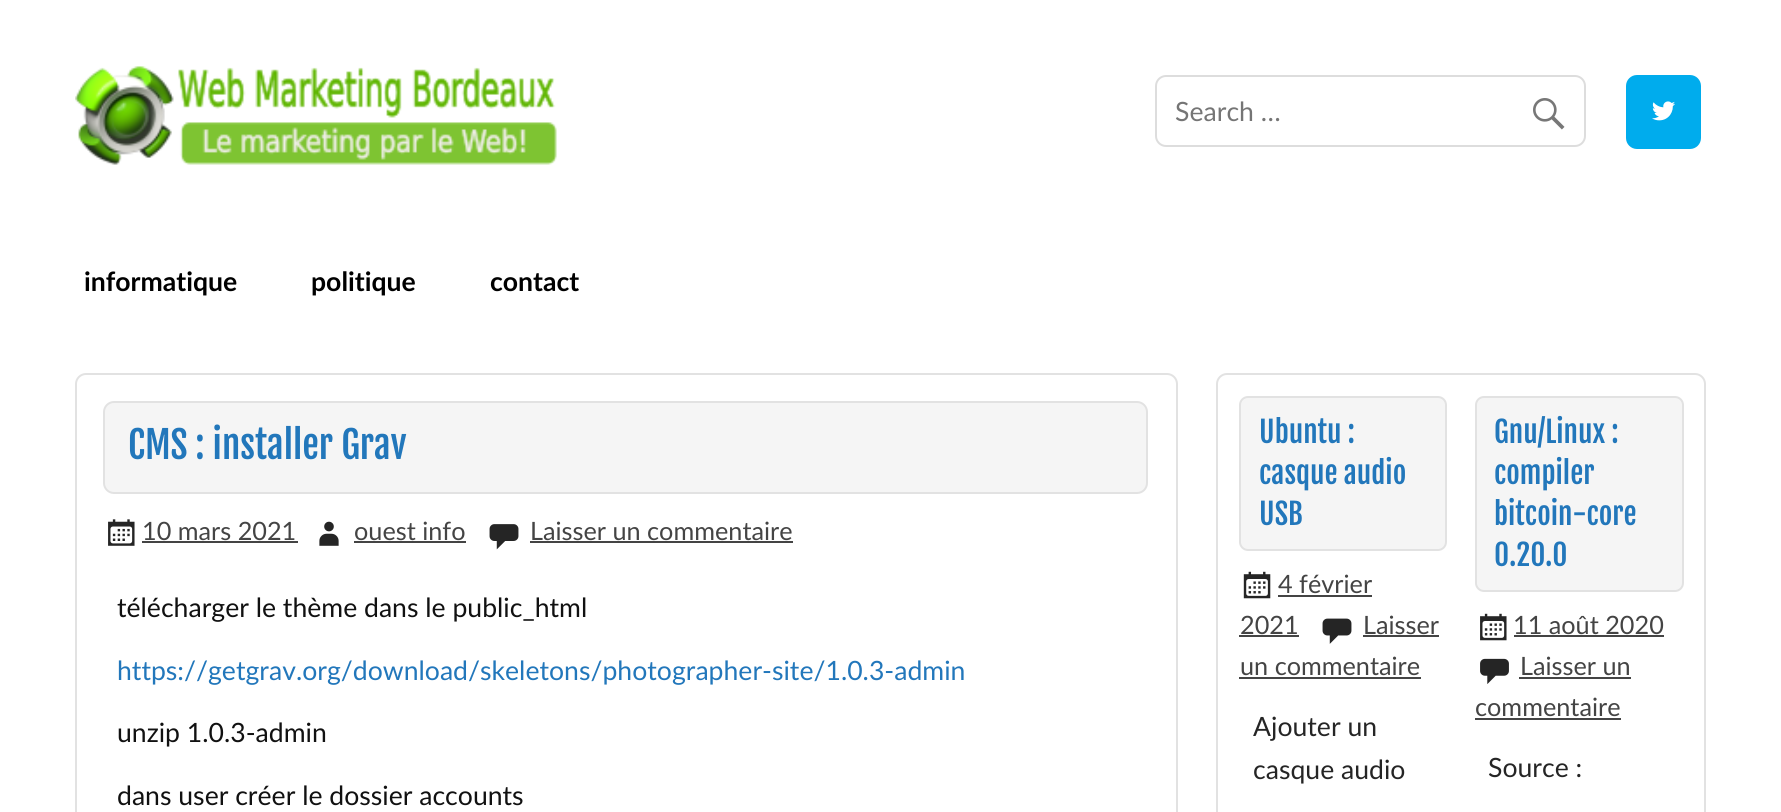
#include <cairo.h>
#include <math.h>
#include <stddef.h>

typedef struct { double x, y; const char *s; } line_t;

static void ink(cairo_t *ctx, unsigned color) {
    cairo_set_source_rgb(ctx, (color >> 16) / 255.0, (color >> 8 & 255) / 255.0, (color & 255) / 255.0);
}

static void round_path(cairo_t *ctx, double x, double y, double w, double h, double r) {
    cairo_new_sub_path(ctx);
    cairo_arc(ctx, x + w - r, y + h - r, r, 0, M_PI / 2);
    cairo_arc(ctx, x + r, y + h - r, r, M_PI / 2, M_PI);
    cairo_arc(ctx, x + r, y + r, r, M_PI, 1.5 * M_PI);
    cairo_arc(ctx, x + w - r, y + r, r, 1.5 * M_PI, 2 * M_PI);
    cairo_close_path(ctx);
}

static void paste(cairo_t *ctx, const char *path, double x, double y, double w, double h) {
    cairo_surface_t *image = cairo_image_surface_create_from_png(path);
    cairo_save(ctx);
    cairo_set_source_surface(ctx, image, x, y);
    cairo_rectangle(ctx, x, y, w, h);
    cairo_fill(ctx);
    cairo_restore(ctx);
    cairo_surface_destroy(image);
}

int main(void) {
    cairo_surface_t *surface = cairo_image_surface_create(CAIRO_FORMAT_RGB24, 1781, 812);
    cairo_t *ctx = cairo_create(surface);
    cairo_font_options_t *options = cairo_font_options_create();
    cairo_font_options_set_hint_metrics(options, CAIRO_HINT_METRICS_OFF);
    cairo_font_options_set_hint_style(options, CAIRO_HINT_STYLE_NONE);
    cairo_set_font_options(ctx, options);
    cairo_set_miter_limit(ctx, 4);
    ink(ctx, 0xFFFFFF);
    cairo_paint(ctx);
    paste(ctx, "media/1.png", 75, 66, 482, 99);
    round_path(ctx, 1156, 76, 429, 70, 10);
    ink(ctx, 0xDDDDDD);
    cairo_stroke(ctx);
    cairo_select_font_face(ctx, "Lato", CAIRO_FONT_SLANT_NORMAL, CAIRO_FONT_WEIGHT_NORMAL);
    cairo_set_font_size(ctx, 26.6);
    ink(ctx, 0x757575);
    cairo_move_to(ctx, 1175, 121);
    cairo_show_text(ctx, "Search …");
    paste(ctx, "media/2.png", 1533, 98, 32, 32);
    ink(ctx, 0x00ACED);
    round_path(ctx, 1626, 75, 75, 74, 11);
    cairo_fill(ctx);
    paste(ctx, "media/3.png", 1652, 101, 23, 20);
    cairo_select_font_face(ctx, "Lato", CAIRO_FONT_SLANT_NORMAL, CAIRO_FONT_WEIGHT_BOLD);
    ink(ctx, 0x000000);
    {
        static const line_t items[] = {
            {84, 291, "informatique"},
            {311, 291, "politique"},
            {490, 291, "contact"},
        };
        for (size_t i = 0; i < sizeof items / sizeof *items; i++) {
            cairo_move_to(ctx, items[i].x, items[i].y);
            cairo_show_text(ctx, items[i].s);
        }
    }
    round_path(ctx, 76, 374, 1101, 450, 10);
    ink(ctx, 0xE2E2E2);
    cairo_stroke(ctx);
    ink(ctx, 0xF5F5F5);
    round_path(ctx, 104, 402, 1043, 91, 10);
    cairo_fill_preserve(ctx);
    ink(ctx, 0xE2E2E2);
    cairo_stroke(ctx);
    cairo_select_font_face(ctx, "Fjalla One", CAIRO_FONT_SLANT_NORMAL, CAIRO_FONT_WEIGHT_NORMAL);
    cairo_set_font_size(ctx, 37.25);
    ink(ctx, 0x2277BB);
    cairo_move_to(ctx, 128, 459);
    cairo_show_text(ctx, "CMS : installer Grav");
    paste(ctx, "media/4.png", 108, 519, 27, 27);
    cairo_select_font_face(ctx, "Lato", CAIRO_FONT_SLANT_NORMAL, CAIRO_FONT_WEIGHT_NORMAL);
    cairo_set_font_size(ctx, 25.25);
    ink(ctx, 0x444444);
    cairo_move_to(ctx, 142, 540);
    cairo_show_text(ctx, "10 mars 2021");
    cairo_rectangle(ctx, 142, 541, 156, 2);
    cairo_fill(ctx);
    paste(ctx, "media/5.png", 319, 521, 20, 25);
    cairo_move_to(ctx, 354, 540);
    cairo_show_text(ctx, "ouest info");
    cairo_rectangle(ctx, 354, 541, 112, 2);
    cairo_fill(ctx);
    paste(ctx, "media/6.png", 489, 524, 30, 26);
    cairo_move_to(ctx, 530, 540);
    cairo_show_text(ctx, "Laisser un commentaire");
    cairo_rectangle(ctx, 530, 541, 263, 2);
    cairo_fill(ctx);
    cairo_set_font_size(ctx, 26.6);
    ink(ctx, 0x111111);
    cairo_move_to(ctx, 117, 617);
    cairo_show_text(ctx, "télécharger le thème dans le public_html");
    ink(ctx, 0x2277BB);
    cairo_move_to(ctx, 117, 680);
    cairo_show_text(ctx, "https://getgrav.org/download/skeletons/photographer-site/1.0.3-admin");
    ink(ctx, 0x111111);
    cairo_move_to(ctx, 117, 742);
    cairo_show_text(ctx, "unzip 1.0.3-admin");
    cairo_move_to(ctx, 117, 805);
    cairo_show_text(ctx, "dans user créer le dossier accounts");
    round_path(ctx, 1217, 374, 488, 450, 10);
    ink(ctx, 0xE2E2E2);
    cairo_stroke(ctx);
    ink(ctx, 0xF5F5F5);
    round_path(ctx, 1240, 397, 206, 153, 8);
    cairo_fill_preserve(ctx);
    ink(ctx, 0xE2E2E2);
    cairo_stroke(ctx);
    cairo_select_font_face(ctx, "Fjalla One", CAIRO_FONT_SLANT_NORMAL, CAIRO_FONT_WEIGHT_NORMAL);
    cairo_set_font_size(ctx, 29.25);
    ink(ctx, 0x2277BB);
    {
        static const line_t items[] = {
            {1259, 443, "Ubuntu :"},
            {1259, 484, "casque audio"},
            {1259, 525, "USB"},
        };
        for (size_t i = 0; i < sizeof items / sizeof *items; i++) {
            cairo_move_to(ctx, items[i].x, items[i].y);
            cairo_show_text(ctx, items[i].s);
        }
    }
    paste(ctx, "media/7.png", 1243, 571, 28, 28);
    cairo_select_font_face(ctx, "Lato", CAIRO_FONT_SLANT_NORMAL, CAIRO_FONT_WEIGHT_NORMAL);
    cairo_set_font_size(ctx, 25.25);
    ink(ctx, 0x444444);
    cairo_move_to(ctx, 1278, 593);
    cairo_show_text(ctx, "4 février");
    cairo_rectangle(ctx, 1278, 595, 94, 2);
    cairo_fill(ctx);
    cairo_move_to(ctx, 1240, 634);
    cairo_show_text(ctx, "2021");
    cairo_rectangle(ctx, 1239, 635, 60, 2);
    cairo_fill(ctx);
    paste(ctx, "media/8.png", 1322, 618, 30, 26);
    cairo_move_to(ctx, 1363, 634);
    cairo_show_text(ctx, "Laisser");
    cairo_rectangle(ctx, 1363, 635, 76, 2);
    cairo_fill(ctx);
    cairo_move_to(ctx, 1240, 675);
    cairo_show_text(ctx, "un commentaire");
    cairo_rectangle(ctx, 1239, 677, 182, 2);
    cairo_fill(ctx);
    cairo_set_font_size(ctx, 26.6);
    ink(ctx, 0x252525);
    cairo_move_to(ctx, 1253, 736);
    cairo_show_text(ctx, "Ajouter un");
    cairo_move_to(ctx, 1253, 779);
    cairo_show_text(ctx, "casque audio");
    ink(ctx, 0xF5F5F5);
    round_path(ctx, 1476, 397, 207, 194, 8);
    cairo_fill_preserve(ctx);
    ink(ctx, 0xE2E2E2);
    cairo_stroke(ctx);
    cairo_select_font_face(ctx, "Fjalla One", CAIRO_FONT_SLANT_NORMAL, CAIRO_FONT_WEIGHT_NORMAL);
    cairo_set_font_size(ctx, 29.25);
    ink(ctx, 0x2277BB);
    {
        static const line_t items[] = {
            {1494, 443, "Gnu/Linux :"},
            {1494, 484, "compiler"},
            {1494, 525, "bitcoin-core"},
            {1494, 566, "0.20.0"},
        };
        for (size_t i = 0; i < sizeof items / sizeof *items; i++) {
            cairo_move_to(ctx, items[i].x, items[i].y);
            cairo_show_text(ctx, items[i].s);
        }
    }
    paste(ctx, "media/9.png", 1480, 613, 27, 28);
    cairo_select_font_face(ctx, "Lato", CAIRO_FONT_SLANT_NORMAL, CAIRO_FONT_WEIGHT_NORMAL);
    cairo_set_font_size(ctx, 25.25);
    ink(ctx, 0x444444);
    cairo_move_to(ctx, 1513, 634);
    cairo_show_text(ctx, "11 août 2020");
    cairo_rectangle(ctx, 1514, 635, 150, 2);
    cairo_fill(ctx);
    paste(ctx, "media/10.png", 1480, 658, 29, 26);
    cairo_move_to(ctx, 1520, 675);
    cairo_show_text(ctx, "Laisser un");
    cairo_rectangle(ctx, 1519, 677, 112, 2);
    cairo_fill(ctx);
    cairo_move_to(ctx, 1475, 716);
    cairo_show_text(ctx, "commentaire");
    cairo_rectangle(ctx, 1475, 718, 146, 2);
    cairo_fill(ctx);
    cairo_set_font_size(ctx, 26.6);
    ink(ctx, 0x252525);
    cairo_move_to(ctx, 1488, 777);
    cairo_show_text(ctx, "Source :");
    cairo_surface_write_to_png(surface, "image.png");
    cairo_font_options_destroy(options);
    cairo_destroy(ctx);
    cairo_surface_destroy(surface);
    return 0;
}
